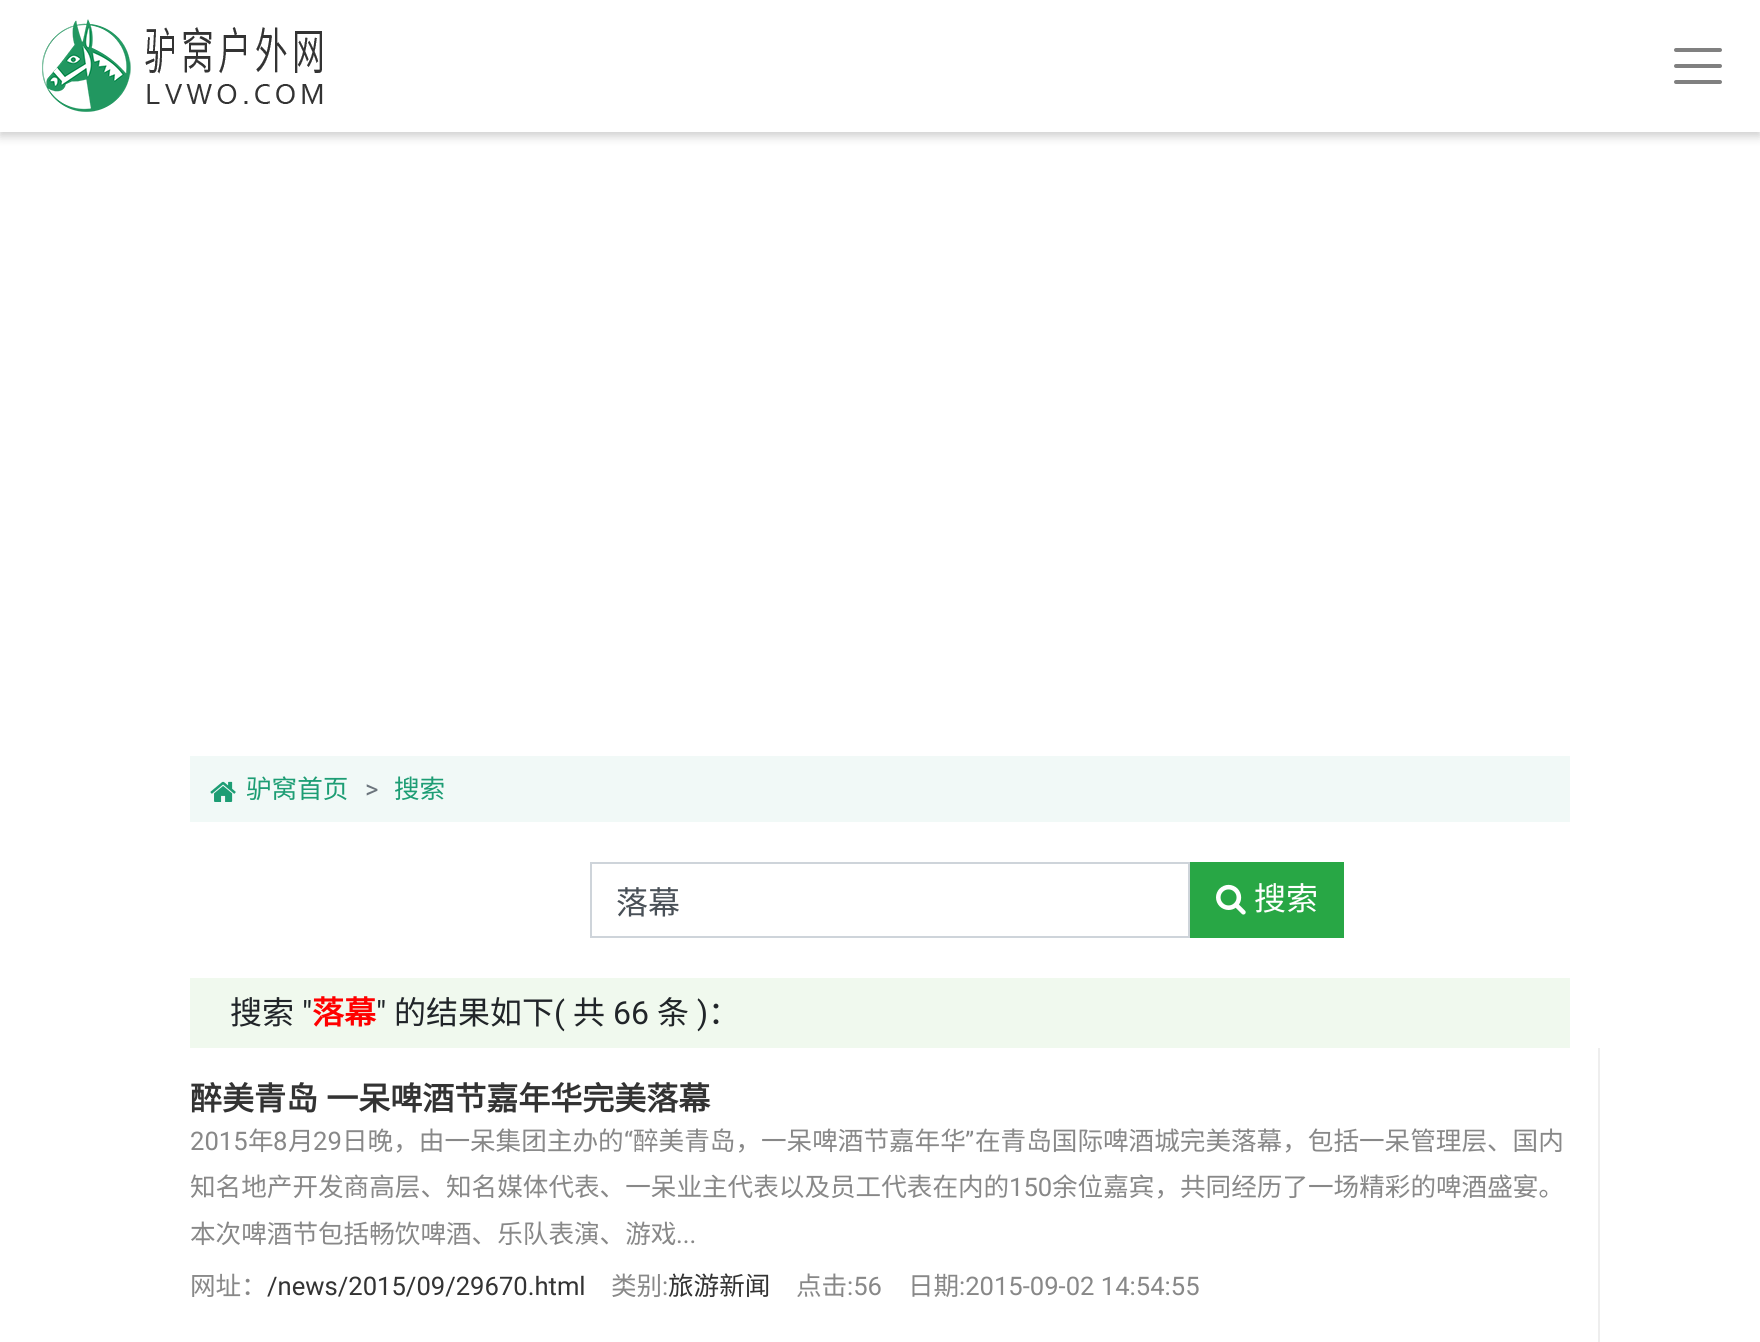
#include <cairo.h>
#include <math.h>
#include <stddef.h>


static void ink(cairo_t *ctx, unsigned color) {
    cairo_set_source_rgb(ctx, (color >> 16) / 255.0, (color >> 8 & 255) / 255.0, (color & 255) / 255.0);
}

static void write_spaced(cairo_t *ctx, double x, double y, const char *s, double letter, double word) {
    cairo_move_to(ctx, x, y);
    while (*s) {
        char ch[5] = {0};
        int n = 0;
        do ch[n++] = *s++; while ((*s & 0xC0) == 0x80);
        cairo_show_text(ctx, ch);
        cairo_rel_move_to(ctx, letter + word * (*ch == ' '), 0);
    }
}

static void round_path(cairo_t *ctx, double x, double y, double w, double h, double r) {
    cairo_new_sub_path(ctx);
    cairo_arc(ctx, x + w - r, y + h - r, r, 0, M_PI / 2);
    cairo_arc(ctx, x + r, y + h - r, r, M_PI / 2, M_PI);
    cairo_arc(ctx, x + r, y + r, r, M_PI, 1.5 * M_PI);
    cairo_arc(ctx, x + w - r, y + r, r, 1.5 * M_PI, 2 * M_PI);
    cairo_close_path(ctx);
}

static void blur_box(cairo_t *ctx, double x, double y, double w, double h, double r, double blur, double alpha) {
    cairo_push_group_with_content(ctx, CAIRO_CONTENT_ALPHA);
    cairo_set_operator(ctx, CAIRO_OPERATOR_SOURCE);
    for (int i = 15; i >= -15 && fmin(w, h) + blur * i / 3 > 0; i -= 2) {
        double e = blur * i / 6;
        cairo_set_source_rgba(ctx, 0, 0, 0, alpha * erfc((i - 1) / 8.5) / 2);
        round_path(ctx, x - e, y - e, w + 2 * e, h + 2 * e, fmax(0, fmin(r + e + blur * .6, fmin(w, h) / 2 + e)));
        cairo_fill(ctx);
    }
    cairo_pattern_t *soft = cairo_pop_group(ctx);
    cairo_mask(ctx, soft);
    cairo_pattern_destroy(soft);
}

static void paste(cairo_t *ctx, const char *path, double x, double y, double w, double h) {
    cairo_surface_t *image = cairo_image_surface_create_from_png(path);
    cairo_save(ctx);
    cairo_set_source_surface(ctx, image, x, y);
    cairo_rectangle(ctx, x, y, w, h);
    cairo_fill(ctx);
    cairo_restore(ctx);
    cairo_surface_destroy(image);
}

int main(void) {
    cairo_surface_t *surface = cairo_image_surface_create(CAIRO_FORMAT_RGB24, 1760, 1342);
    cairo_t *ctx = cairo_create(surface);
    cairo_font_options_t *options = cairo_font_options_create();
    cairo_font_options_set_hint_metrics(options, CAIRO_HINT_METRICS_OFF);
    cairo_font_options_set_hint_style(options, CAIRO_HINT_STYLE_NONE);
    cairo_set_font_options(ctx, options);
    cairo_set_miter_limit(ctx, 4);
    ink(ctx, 0xFFFFFF);
    cairo_paint(ctx);
    cairo_save(ctx);
    cairo_rectangle(ctx, 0, 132, 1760, 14);
    cairo_clip(ctx);
    ink(ctx, 0xCCCCCC);
    blur_box(ctx, 0, 4, 1760, 132, 0, 5, 1);
    cairo_restore(ctx);
    paste(ctx, "media/1.png", 42, 19, 281, 93);
    cairo_new_path(ctx);
    cairo_move_to(ctx, 1676, 50);
    cairo_line_to(ctx, 1720, 50);
    cairo_move_to(ctx, 1676, 66);
    cairo_line_to(ctx, 1720, 66);
    cairo_move_to(ctx, 1676, 82);
    cairo_line_to(ctx, 1720, 82);
    ink(ctx, 0x808080);
    cairo_set_line_width(ctx, 4);
    cairo_set_line_cap(ctx, CAIRO_LINE_CAP_ROUND);
    cairo_stroke(ctx);
    ink(ctx, 0xF1F9F7);
    cairo_rectangle(ctx, 190, 756, 1380, 66);
    cairo_fill(ctx);
    paste(ctx, "media/2.png", 210, 781, 26, 21);
    cairo_select_font_face(ctx, "Noto Sans CJK SC", CAIRO_FONT_SLANT_NORMAL, CAIRO_FONT_WEIGHT_NORMAL);
    cairo_set_font_size(ctx, 25.6);
    ink(ctx, 0x1D9D74);
    cairo_move_to(ctx, 246, 798);
    cairo_show_text(ctx, "驴窝首页");
    cairo_select_font_face(ctx, "Roboto", CAIRO_FONT_SLANT_NORMAL, CAIRO_FONT_WEIGHT_NORMAL);
    ink(ctx, 0x6C757D);
    cairo_move_to(ctx, 365, 798);
    cairo_show_text(ctx, ">");
    cairo_select_font_face(ctx, "Noto Sans CJK SC", CAIRO_FONT_SLANT_NORMAL, CAIRO_FONT_WEIGHT_NORMAL);
    ink(ctx, 0x1D9D74);
    cairo_move_to(ctx, 394, 798);
    cairo_show_text(ctx, "搜索");
    cairo_rectangle(ctx, 591, 863, 598, 74);
    ink(ctx, 0xCED4DA);
    cairo_set_line_width(ctx, 2);
    cairo_set_line_cap(ctx, CAIRO_LINE_CAP_BUTT);
    cairo_stroke(ctx);
    cairo_set_font_size(ctx, 32);
    ink(ctx, 0x495057);
    cairo_move_to(ctx, 616, 914);
    cairo_show_text(ctx, "落幕");
    ink(ctx, 0x28A745);
    cairo_rectangle(ctx, 1190, 862, 154, 76);
    cairo_fill(ctx);
    paste(ctx, "media/3.png", 1216, 884, 30, 31);
    ink(ctx, 0xFFFFFF);
    cairo_move_to(ctx, 1254, 910);
    cairo_show_text(ctx, "搜索");
    ink(ctx, 0xF0F9EE);
    cairo_rectangle(ctx, 190, 978, 1380, 70);
    cairo_fill(ctx);
    ink(ctx, 0x212529);
    cairo_move_to(ctx, 230, 1024);
    cairo_show_text(ctx, "搜索");
    cairo_select_font_face(ctx, "Roboto", CAIRO_FONT_SLANT_NORMAL, CAIRO_FONT_WEIGHT_NORMAL);
    cairo_move_to(ctx, 302, 1024);
    cairo_show_text(ctx, "\"");
    cairo_select_font_face(ctx, "Noto Sans CJK SC", CAIRO_FONT_SLANT_NORMAL, CAIRO_FONT_WEIGHT_BOLD);
    ink(ctx, 0xFF0000);
    cairo_move_to(ctx, 312, 1024);
    cairo_show_text(ctx, "落幕");
    cairo_select_font_face(ctx, "Roboto", CAIRO_FONT_SLANT_NORMAL, CAIRO_FONT_WEIGHT_NORMAL);
    ink(ctx, 0x212529);
    cairo_move_to(ctx, 376, 1024);
    cairo_show_text(ctx, "\"");
    cairo_select_font_face(ctx, "Noto Sans CJK SC", CAIRO_FONT_SLANT_NORMAL, CAIRO_FONT_WEIGHT_NORMAL);
    cairo_move_to(ctx, 394, 1024);
    cairo_show_text(ctx, "的结果如下");
    cairo_select_font_face(ctx, "Roboto", CAIRO_FONT_SLANT_NORMAL, CAIRO_FONT_WEIGHT_NORMAL);
    cairo_move_to(ctx, 554, 1024);
    cairo_show_text(ctx, "(");
    cairo_select_font_face(ctx, "Noto Sans CJK SC", CAIRO_FONT_SLANT_NORMAL, CAIRO_FONT_WEIGHT_NORMAL);
    cairo_move_to(ctx, 573, 1024);
    cairo_show_text(ctx, "共");
    cairo_select_font_face(ctx, "Roboto", CAIRO_FONT_SLANT_NORMAL, CAIRO_FONT_WEIGHT_NORMAL);
    cairo_move_to(ctx, 613, 1024);
    cairo_show_text(ctx, "66");
    cairo_select_font_face(ctx, "Noto Sans CJK SC", CAIRO_FONT_SLANT_NORMAL, CAIRO_FONT_WEIGHT_NORMAL);
    cairo_move_to(ctx, 657, 1024);
    cairo_show_text(ctx, "条");
    cairo_select_font_face(ctx, "Roboto", CAIRO_FONT_SLANT_NORMAL, CAIRO_FONT_WEIGHT_NORMAL);
    cairo_move_to(ctx, 697, 1024);
    cairo_show_text(ctx, ")");
    cairo_select_font_face(ctx, "Noto Sans CJK SC", CAIRO_FONT_SLANT_NORMAL, CAIRO_FONT_WEIGHT_NORMAL);
    cairo_move_to(ctx, 708, 1024);
    cairo_show_text(ctx, "：");
    ink(ctx, 0xEEEEEE);
    cairo_rectangle(ctx, 1598, 1048, 2, 294);
    cairo_fill(ctx);
    cairo_select_font_face(ctx, "Noto Sans CJK SC", CAIRO_FONT_SLANT_NORMAL, CAIRO_FONT_WEIGHT_BOLD);
    ink(ctx, 0x333333);
    write_spaced(ctx, 190, 1110, "醉美青岛 一呆啤酒节嘉年华完美落幕", 0, 1);
    cairo_select_font_face(ctx, "Roboto", CAIRO_FONT_SLANT_NORMAL, CAIRO_FONT_WEIGHT_NORMAL);
    cairo_set_font_size(ctx, 25.6);
    ink(ctx, 0x888888);
    cairo_move_to(ctx, 190, 1150);
    cairo_show_text(ctx, "2015");
    cairo_select_font_face(ctx, "Noto Sans CJK SC", CAIRO_FONT_SLANT_NORMAL, CAIRO_FONT_WEIGHT_NORMAL);
    cairo_move_to(ctx, 248, 1150);
    cairo_show_text(ctx, "年");
    cairo_select_font_face(ctx, "Roboto", CAIRO_FONT_SLANT_NORMAL, CAIRO_FONT_WEIGHT_NORMAL);
    cairo_move_to(ctx, 273, 1150);
    cairo_show_text(ctx, "8");
    cairo_select_font_face(ctx, "Noto Sans CJK SC", CAIRO_FONT_SLANT_NORMAL, CAIRO_FONT_WEIGHT_NORMAL);
    cairo_move_to(ctx, 288, 1150);
    cairo_show_text(ctx, "月");
    cairo_select_font_face(ctx, "Roboto", CAIRO_FONT_SLANT_NORMAL, CAIRO_FONT_WEIGHT_NORMAL);
    cairo_move_to(ctx, 313, 1150);
    cairo_show_text(ctx, "29");
    cairo_select_font_face(ctx, "Noto Sans CJK SC", CAIRO_FONT_SLANT_NORMAL, CAIRO_FONT_WEIGHT_NORMAL);
    cairo_move_to(ctx, 342, 1150);
    cairo_show_text(ctx, "日晚，由一呆集团主办的");
    cairo_select_font_face(ctx, "Roboto", CAIRO_FONT_SLANT_NORMAL, CAIRO_FONT_WEIGHT_NORMAL);
    cairo_move_to(ctx, 624, 1150);
    cairo_show_text(ctx, "“");
    cairo_select_font_face(ctx, "Noto Sans CJK SC", CAIRO_FONT_SLANT_NORMAL, CAIRO_FONT_WEIGHT_NORMAL);
    cairo_move_to(ctx, 633, 1150);
    cairo_show_text(ctx, "醉美青岛，一呆啤酒节嘉年华");
    cairo_select_font_face(ctx, "Roboto", CAIRO_FONT_SLANT_NORMAL, CAIRO_FONT_WEIGHT_NORMAL);
    cairo_move_to(ctx, 965, 1150);
    cairo_show_text(ctx, "”");
    cairo_select_font_face(ctx, "Noto Sans CJK SC", CAIRO_FONT_SLANT_NORMAL, CAIRO_FONT_WEIGHT_NORMAL);
    cairo_move_to(ctx, 975, 1150);
    cairo_show_text(ctx, "在青岛国际啤酒城完美落幕，包括一呆管理层、国内");
    cairo_move_to(ctx, 190, 1196);
    cairo_show_text(ctx, "知名地产开发商高层、知名媒体代表、一呆业主代表以及员工代表在内的");
    cairo_select_font_face(ctx, "Roboto", CAIRO_FONT_SLANT_NORMAL, CAIRO_FONT_WEIGHT_NORMAL);
    cairo_move_to(ctx, 1009, 1196);
    cairo_show_text(ctx, "150");
    cairo_select_font_face(ctx, "Noto Sans CJK SC", CAIRO_FONT_SLANT_NORMAL, CAIRO_FONT_WEIGHT_NORMAL);
    cairo_move_to(ctx, 1052, 1196);
    cairo_show_text(ctx, "余位嘉宾，共同经历了一场精彩的啤酒盛宴。");
    cairo_move_to(ctx, 190, 1243);
    cairo_show_text(ctx, "本次啤酒节包括畅饮啤酒、乐队表演、游戏");
    cairo_select_font_face(ctx, "Roboto", CAIRO_FONT_SLANT_NORMAL, CAIRO_FONT_WEIGHT_NORMAL);
    cairo_move_to(ctx, 676, 1243);
    cairo_show_text(ctx, "...");
    cairo_select_font_face(ctx, "Noto Sans CJK SC", CAIRO_FONT_SLANT_NORMAL, CAIRO_FONT_WEIGHT_NORMAL);
    cairo_move_to(ctx, 190, 1295);
    cairo_show_text(ctx, "网址：");
    cairo_select_font_face(ctx, "Roboto", CAIRO_FONT_SLANT_NORMAL, CAIRO_FONT_WEIGHT_NORMAL);
    ink(ctx, 0x333333);
    cairo_move_to(ctx, 267, 1295);
    cairo_show_text(ctx, "/news/2015/09/29670.html");
    cairo_select_font_face(ctx, "Noto Sans CJK SC", CAIRO_FONT_SLANT_NORMAL, CAIRO_FONT_WEIGHT_NORMAL);
    ink(ctx, 0x888888);
    cairo_move_to(ctx, 611, 1295);
    cairo_show_text(ctx, "类别");
    cairo_select_font_face(ctx, "Roboto", CAIRO_FONT_SLANT_NORMAL, CAIRO_FONT_WEIGHT_NORMAL);
    cairo_move_to(ctx, 662, 1295);
    cairo_show_text(ctx, ":");
    cairo_select_font_face(ctx, "Noto Sans CJK SC", CAIRO_FONT_SLANT_NORMAL, CAIRO_FONT_WEIGHT_NORMAL);
    ink(ctx, 0x333333);
    cairo_move_to(ctx, 668, 1295);
    cairo_show_text(ctx, "旅游新闻");
    ink(ctx, 0x888888);
    cairo_move_to(ctx, 796, 1295);
    cairo_show_text(ctx, "点击");
    cairo_select_font_face(ctx, "Roboto", CAIRO_FONT_SLANT_NORMAL, CAIRO_FONT_WEIGHT_NORMAL);
    cairo_move_to(ctx, 847, 1295);
    cairo_show_text(ctx, ":56");
    cairo_select_font_face(ctx, "Noto Sans CJK SC", CAIRO_FONT_SLANT_NORMAL, CAIRO_FONT_WEIGHT_NORMAL);
    cairo_move_to(ctx, 908, 1295);
    cairo_show_text(ctx, "日期");
    cairo_select_font_face(ctx, "Roboto", CAIRO_FONT_SLANT_NORMAL, CAIRO_FONT_WEIGHT_NORMAL);
    cairo_move_to(ctx, 959, 1295);
    cairo_show_text(ctx, ":2015-09-02 14:54:55");
    cairo_surface_write_to_png(surface, "image.png");
    cairo_font_options_destroy(options);
    cairo_destroy(ctx);
    cairo_surface_destroy(surface);
    return 0;
}
